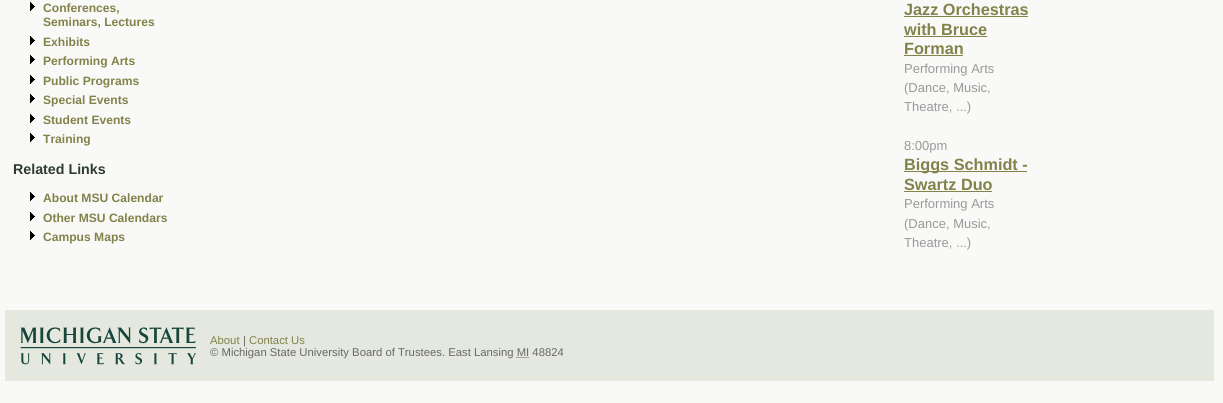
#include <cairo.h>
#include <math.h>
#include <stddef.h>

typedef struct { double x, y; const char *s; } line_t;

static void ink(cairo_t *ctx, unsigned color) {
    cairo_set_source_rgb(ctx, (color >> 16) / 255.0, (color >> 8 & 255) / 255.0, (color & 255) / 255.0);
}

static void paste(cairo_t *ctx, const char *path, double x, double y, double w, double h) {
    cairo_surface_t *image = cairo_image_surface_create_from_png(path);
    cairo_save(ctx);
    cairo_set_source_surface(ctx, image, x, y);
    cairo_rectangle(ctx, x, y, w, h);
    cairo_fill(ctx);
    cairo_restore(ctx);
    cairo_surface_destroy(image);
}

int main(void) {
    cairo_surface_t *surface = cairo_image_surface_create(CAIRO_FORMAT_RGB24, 1223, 403);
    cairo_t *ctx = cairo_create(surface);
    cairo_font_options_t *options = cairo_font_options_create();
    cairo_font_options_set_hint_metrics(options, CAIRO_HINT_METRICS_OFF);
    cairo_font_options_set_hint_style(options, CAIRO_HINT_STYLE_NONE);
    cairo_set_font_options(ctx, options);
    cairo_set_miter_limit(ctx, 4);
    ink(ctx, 0xF9F9F7);
    cairo_paint(ctx);
    paste(ctx, "media/1.png", 30, 2, 5, 9);
    cairo_select_font_face(ctx, "Liberation Sans", CAIRO_FONT_SLANT_NORMAL, CAIRO_FONT_WEIGHT_BOLD);
    cairo_set_font_size(ctx, 12.1);
    ink(ctx, 0x82824B);
    cairo_move_to(ctx, 43, 12);
    cairo_show_text(ctx, "Conferences,");
    cairo_move_to(ctx, 43, 26);
    cairo_show_text(ctx, "Seminars, Lectures");
    paste(ctx, "media/1.png", 30, 36, 5, 9);
    cairo_move_to(ctx, 43, 46);
    cairo_show_text(ctx, "Exhibits");
    paste(ctx, "media/1.png", 30, 55, 5, 9);
    cairo_move_to(ctx, 43, 65);
    cairo_show_text(ctx, "Performing Arts");
    paste(ctx, "media/1.png", 30, 75, 5, 9);
    cairo_move_to(ctx, 43, 85);
    cairo_show_text(ctx, "Public Programs");
    paste(ctx, "media/1.png", 30, 94, 5, 9);
    cairo_move_to(ctx, 43, 104);
    cairo_show_text(ctx, "Special Events");
    paste(ctx, "media/1.png", 30, 114, 5, 9);
    cairo_move_to(ctx, 43, 124);
    cairo_show_text(ctx, "Student Events");
    paste(ctx, "media/1.png", 30, 133, 5, 9);
    cairo_move_to(ctx, 43, 143);
    cairo_show_text(ctx, "Training");
    cairo_set_font_size(ctx, 14.25);
    ink(ctx, 0x2D3C2D);
    cairo_move_to(ctx, 13, 174);
    cairo_show_text(ctx, "Related Links");
    paste(ctx, "media/1.png", 30, 192, 5, 9);
    cairo_set_font_size(ctx, 12.1);
    ink(ctx, 0x82824B);
    cairo_move_to(ctx, 43, 202);
    cairo_show_text(ctx, "About MSU Calendar");
    paste(ctx, "media/1.png", 30, 212, 5, 9);
    cairo_move_to(ctx, 43, 222);
    cairo_show_text(ctx, "Other MSU Calendars");
    paste(ctx, "media/1.png", 30, 231, 5, 9);
    cairo_move_to(ctx, 43, 241);
    cairo_show_text(ctx, "Campus Maps");
    cairo_set_font_size(ctx, 16.25);
    cairo_move_to(ctx, 904, 15);
    cairo_show_text(ctx, "Jazz Orchestras");
    cairo_rectangle(ctx, 904, 16, 124, 1);
    cairo_fill(ctx);
    cairo_move_to(ctx, 904, 35);
    cairo_show_text(ctx, "with Bruce");
    cairo_rectangle(ctx, 904, 36, 83, 1);
    cairo_fill(ctx);
    cairo_move_to(ctx, 904, 54);
    cairo_show_text(ctx, "Forman");
    cairo_rectangle(ctx, 904, 55, 59, 1);
    cairo_fill(ctx);
    cairo_select_font_face(ctx, "Liberation Sans", CAIRO_FONT_SLANT_NORMAL, CAIRO_FONT_WEIGHT_NORMAL);
    cairo_set_font_size(ctx, 13);
    ink(ctx, 0x999999);
    {
        static const line_t items[] = {
            {904, 73, "Performing Arts"},
            {904, 92, "(Dance, Music,"},
            {904, 111, "Theatre, ...)"},
            {904, 150, "8:00pm"},
        };
        for (size_t i = 0; i < sizeof items / sizeof *items; i++) {
            cairo_move_to(ctx, items[i].x, items[i].y);
            cairo_show_text(ctx, items[i].s);
        }
    }
    ink(ctx, 0x82824B);
    cairo_rectangle(ctx, 904, 171, 123, 1);
    cairo_fill(ctx);
    cairo_select_font_face(ctx, "Liberation Sans", CAIRO_FONT_SLANT_NORMAL, CAIRO_FONT_WEIGHT_BOLD);
    cairo_set_font_size(ctx, 16.25);
    cairo_move_to(ctx, 904, 170);
    cairo_show_text(ctx, "Biggs Schmidt -");
    cairo_move_to(ctx, 904, 190);
    cairo_show_text(ctx, "Swartz Duo");
    cairo_rectangle(ctx, 904, 191, 88, 1);
    cairo_fill(ctx);
    cairo_select_font_face(ctx, "Liberation Sans", CAIRO_FONT_SLANT_NORMAL, CAIRO_FONT_WEIGHT_NORMAL);
    cairo_set_font_size(ctx, 13);
    ink(ctx, 0x999999);
    {
        static const line_t items[] = {
            {904, 208, "Performing Arts"},
            {904, 228, "(Dance, Music,"},
            {904, 247, "Theatre, ...)"},
        };
        for (size_t i = 0; i < sizeof items / sizeof *items; i++) {
            cairo_move_to(ctx, items[i].x, items[i].y);
            cairo_show_text(ctx, items[i].s);
        }
    }
    ink(ctx, 0xE4E8DE);
    cairo_rectangle(ctx, 5, 310, 1209, 71);
    cairo_fill(ctx);
    paste(ctx, "media/2.png", 20, 327, 176, 38);
    cairo_set_font_size(ctx, 11.3);
    ink(ctx, 0x82824B);
    cairo_move_to(ctx, 210, 344);
    cairo_show_text(ctx, "About");
    ink(ctx, 0x686963);
    cairo_move_to(ctx, 243, 344);
    cairo_show_text(ctx, "|");
    ink(ctx, 0x82824B);
    cairo_move_to(ctx, 249, 344);
    cairo_show_text(ctx, "Contact Us");
    ink(ctx, 0x686963);
    cairo_move_to(ctx, 210, 356);
    cairo_show_text(ctx, "© Michigan State University Board of Trustees. East Lansing MI 48824");
    cairo_new_path(ctx);
    cairo_move_to(ctx, 516.5, 357.5);
    cairo_line_to(ctx, 529, 357.5);
    cairo_set_line_width(ctx, 1);
    cairo_set_dash(ctx, (double[]){1, 1}, 2, 0);
    cairo_stroke(ctx);
    cairo_surface_write_to_png(surface, "image.png");
    cairo_font_options_destroy(options);
    cairo_destroy(ctx);
    cairo_surface_destroy(surface);
    return 0;
}
